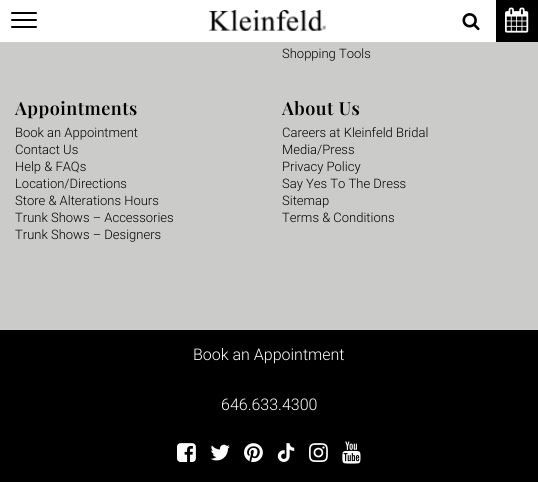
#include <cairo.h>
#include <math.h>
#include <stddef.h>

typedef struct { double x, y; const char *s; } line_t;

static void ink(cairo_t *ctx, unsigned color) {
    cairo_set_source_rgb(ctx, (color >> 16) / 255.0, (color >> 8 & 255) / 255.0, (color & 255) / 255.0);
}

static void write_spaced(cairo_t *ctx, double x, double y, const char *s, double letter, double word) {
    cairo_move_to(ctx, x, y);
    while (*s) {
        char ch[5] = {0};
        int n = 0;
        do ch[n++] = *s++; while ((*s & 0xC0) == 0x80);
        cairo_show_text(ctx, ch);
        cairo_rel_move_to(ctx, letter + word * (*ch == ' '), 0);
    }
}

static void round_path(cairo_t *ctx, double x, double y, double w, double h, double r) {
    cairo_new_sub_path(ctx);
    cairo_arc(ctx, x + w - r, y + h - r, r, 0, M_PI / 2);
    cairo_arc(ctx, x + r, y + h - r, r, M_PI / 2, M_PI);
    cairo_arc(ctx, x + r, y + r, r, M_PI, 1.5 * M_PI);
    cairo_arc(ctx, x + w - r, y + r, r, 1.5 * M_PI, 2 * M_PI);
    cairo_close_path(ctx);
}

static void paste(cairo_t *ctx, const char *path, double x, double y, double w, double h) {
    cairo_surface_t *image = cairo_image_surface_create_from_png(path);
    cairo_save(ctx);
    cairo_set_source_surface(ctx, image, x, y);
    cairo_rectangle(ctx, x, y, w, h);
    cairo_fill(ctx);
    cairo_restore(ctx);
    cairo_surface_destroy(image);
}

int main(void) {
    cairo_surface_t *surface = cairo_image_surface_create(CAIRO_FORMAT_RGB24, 538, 482);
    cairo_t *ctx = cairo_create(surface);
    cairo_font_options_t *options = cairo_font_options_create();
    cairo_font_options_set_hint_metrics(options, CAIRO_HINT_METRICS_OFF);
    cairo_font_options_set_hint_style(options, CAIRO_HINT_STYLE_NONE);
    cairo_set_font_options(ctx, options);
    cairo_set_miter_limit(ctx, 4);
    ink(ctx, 0x000000);
    cairo_paint(ctx);
    ink(ctx, 0xFFFFFF);
    cairo_rectangle(ctx, 0, 0, 496, 42);
    cairo_fill(ctx);
    ink(ctx, 0xCECDCE);
    cairo_rectangle(ctx, 0, 42, 538, 1);
    cairo_fill(ctx);
    paste(ctx, "media/1.png", 209, 10, 117, 21);
    paste(ctx, "media/2.png", 462, 13, 18, 18);
    paste(ctx, "media/3.png", 505, 7, 24, 26);
    ink(ctx, 0x000000);
    round_path(ctx, 11, 19, 26, 2, 1);
    cairo_fill(ctx);
    round_path(ctx, 11, 12, 26, 2, 1);
    cairo_fill(ctx);
    round_path(ctx, 11, 26, 26, 2, 1);
    cairo_fill(ctx);
    ink(ctx, 0xCBCBCA);
    cairo_rectangle(ctx, 0, 43, 538, 287);
    cairo_fill(ctx);
    cairo_select_font_face(ctx, "Roboto Light", CAIRO_FONT_SLANT_NORMAL, CAIRO_FONT_WEIGHT_NORMAL);
    cairo_set_font_size(ctx, 13);
    ink(ctx, 0x000000);
    cairo_move_to(ctx, 282, 58);
    cairo_show_text(ctx, "Shopping Tools");
    cairo_select_font_face(ctx, "Playfair Display SemiBold", CAIRO_FONT_SLANT_NORMAL, CAIRO_FONT_WEIGHT_NORMAL);
    cairo_set_font_size(ctx, 18);
    write_spaced(ctx, 15, 115, "Appointments", 0.5, 0);
    cairo_select_font_face(ctx, "Roboto Light", CAIRO_FONT_SLANT_NORMAL, CAIRO_FONT_WEIGHT_NORMAL);
    cairo_set_font_size(ctx, 13);
    {
        static const line_t items[] = {
            {15, 137, "Book an Appointment"},
            {15, 154, "Contact Us"},
            {15, 171, "Help & FAQs"},
            {15, 188, "Location/Directions"},
            {15, 205, "Store & Alterations Hours"},
            {15, 222, "Trunk Shows – Accessories"},
            {15, 239, "Trunk Shows – Designers"},
        };
        for (size_t i = 0; i < sizeof items / sizeof *items; i++) {
            cairo_move_to(ctx, items[i].x, items[i].y);
            cairo_show_text(ctx, items[i].s);
        }
    }
    cairo_select_font_face(ctx, "Playfair Display SemiBold", CAIRO_FONT_SLANT_NORMAL, CAIRO_FONT_WEIGHT_NORMAL);
    cairo_set_font_size(ctx, 18);
    write_spaced(ctx, 282, 115, "About Us", 0.5, 0);
    cairo_select_font_face(ctx, "Roboto Light", CAIRO_FONT_SLANT_NORMAL, CAIRO_FONT_WEIGHT_NORMAL);
    cairo_set_font_size(ctx, 13);
    {
        static const line_t items[] = {
            {282, 137, "Careers at Kleinfeld Bridal"},
            {282, 154, "Media/Press"},
            {282, 171, "Privacy Policy"},
            {282, 188, "Say Yes To The Dress"},
            {282, 205, "Sitemap"},
            {282, 222, "Terms & Conditions"},
        };
        for (size_t i = 0; i < sizeof items / sizeof *items; i++) {
            cairo_move_to(ctx, items[i].x, items[i].y);
            cairo_show_text(ctx, items[i].s);
        }
    }
    cairo_set_font_size(ctx, 16);
    ink(ctx, 0xFFFFFF);
    cairo_move_to(ctx, 193, 360);
    cairo_show_text(ctx, "Book an Appointment");
    cairo_move_to(ctx, 221, 410);
    cairo_show_text(ctx, "646.633.4300");
    paste(ctx, "media/4.png", 177, 443, 19, 19);
    paste(ctx, "media/5.png", 210, 444, 20, 17);
    paste(ctx, "media/6.png", 244, 443, 19, 19);
    paste(ctx, "media/7.png", 277, 443, 18, 19);
    paste(ctx, "media/8.png", 309, 443, 19, 19);
    paste(ctx, "media/9.png", 342, 441, 19, 23);
    cairo_surface_write_to_png(surface, "image.png");
    cairo_font_options_destroy(options);
    cairo_destroy(ctx);
    cairo_surface_destroy(surface);
    return 0;
}
